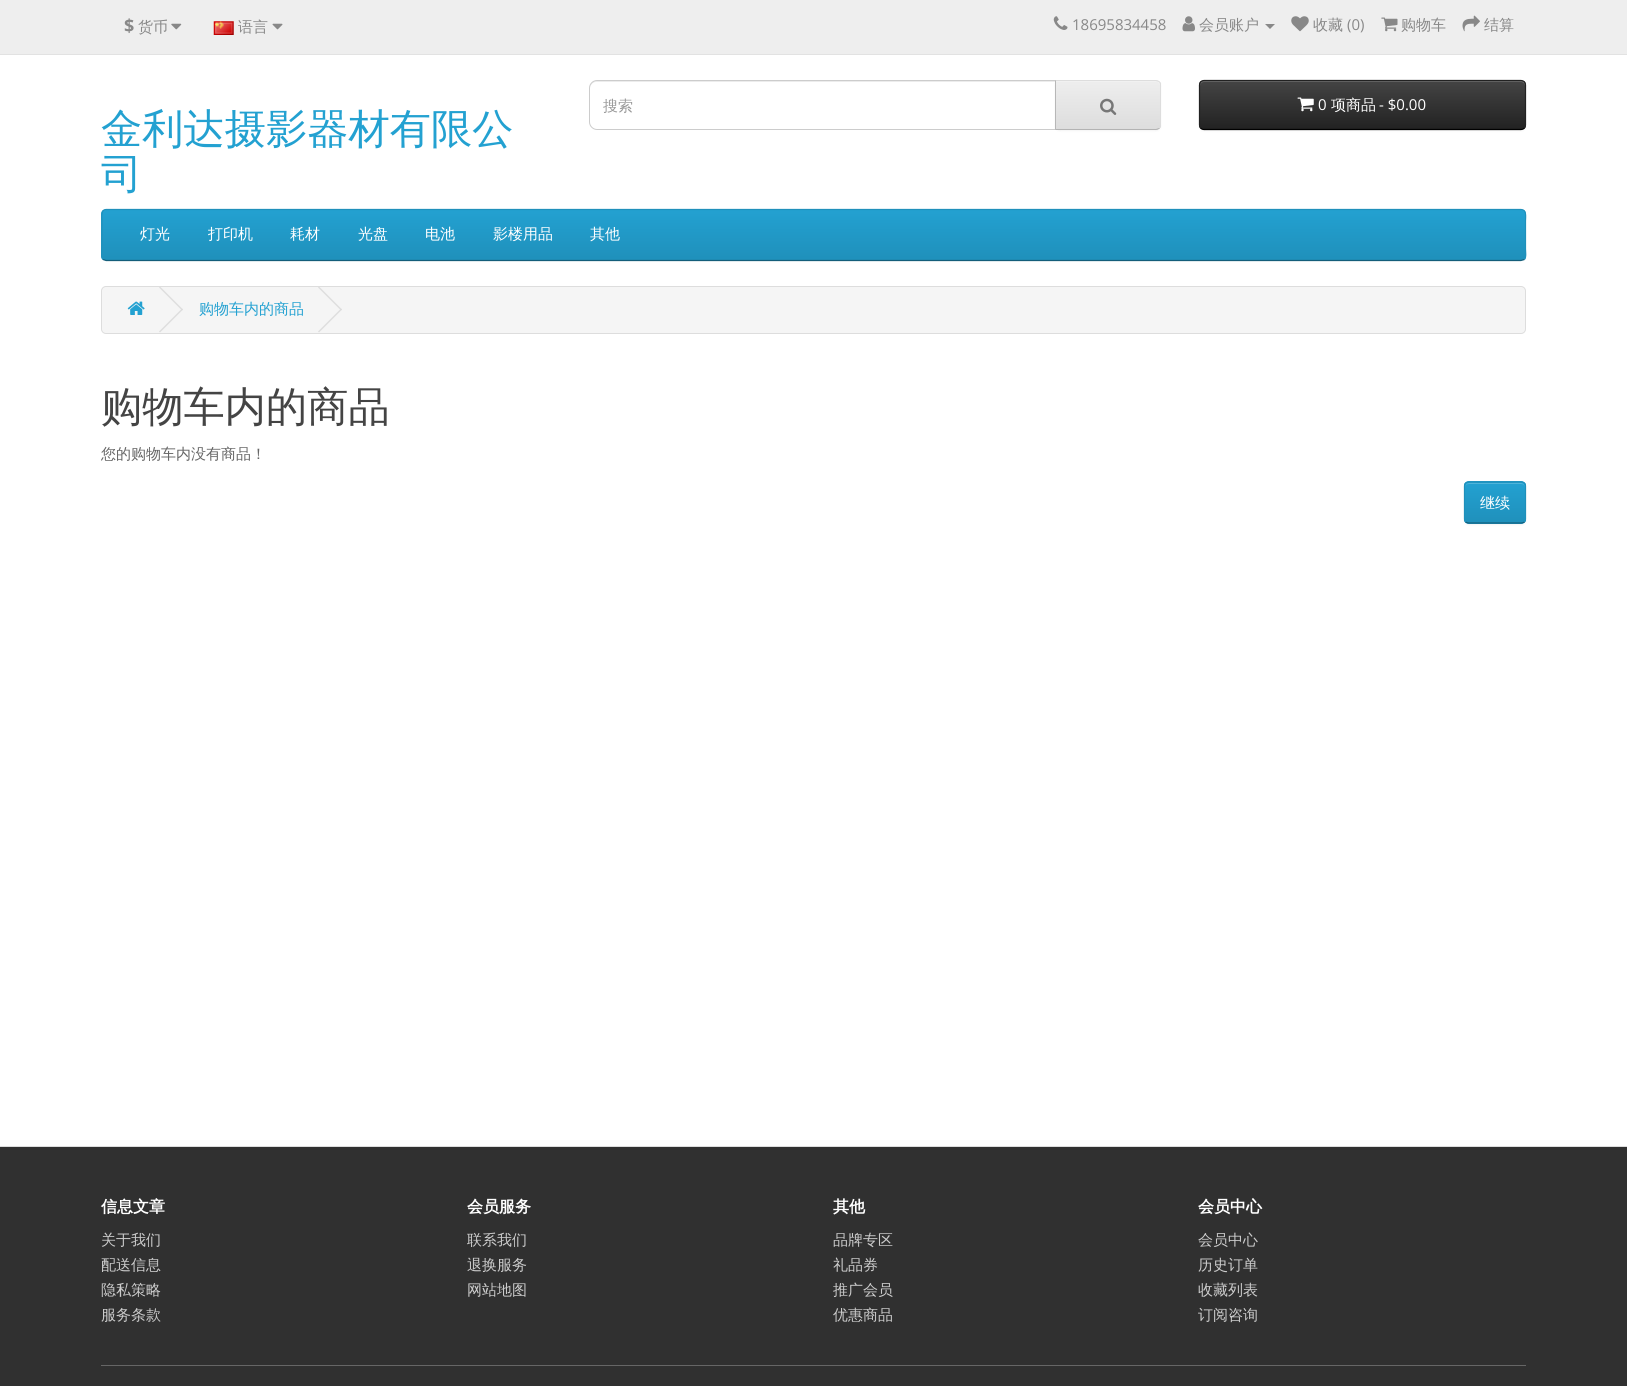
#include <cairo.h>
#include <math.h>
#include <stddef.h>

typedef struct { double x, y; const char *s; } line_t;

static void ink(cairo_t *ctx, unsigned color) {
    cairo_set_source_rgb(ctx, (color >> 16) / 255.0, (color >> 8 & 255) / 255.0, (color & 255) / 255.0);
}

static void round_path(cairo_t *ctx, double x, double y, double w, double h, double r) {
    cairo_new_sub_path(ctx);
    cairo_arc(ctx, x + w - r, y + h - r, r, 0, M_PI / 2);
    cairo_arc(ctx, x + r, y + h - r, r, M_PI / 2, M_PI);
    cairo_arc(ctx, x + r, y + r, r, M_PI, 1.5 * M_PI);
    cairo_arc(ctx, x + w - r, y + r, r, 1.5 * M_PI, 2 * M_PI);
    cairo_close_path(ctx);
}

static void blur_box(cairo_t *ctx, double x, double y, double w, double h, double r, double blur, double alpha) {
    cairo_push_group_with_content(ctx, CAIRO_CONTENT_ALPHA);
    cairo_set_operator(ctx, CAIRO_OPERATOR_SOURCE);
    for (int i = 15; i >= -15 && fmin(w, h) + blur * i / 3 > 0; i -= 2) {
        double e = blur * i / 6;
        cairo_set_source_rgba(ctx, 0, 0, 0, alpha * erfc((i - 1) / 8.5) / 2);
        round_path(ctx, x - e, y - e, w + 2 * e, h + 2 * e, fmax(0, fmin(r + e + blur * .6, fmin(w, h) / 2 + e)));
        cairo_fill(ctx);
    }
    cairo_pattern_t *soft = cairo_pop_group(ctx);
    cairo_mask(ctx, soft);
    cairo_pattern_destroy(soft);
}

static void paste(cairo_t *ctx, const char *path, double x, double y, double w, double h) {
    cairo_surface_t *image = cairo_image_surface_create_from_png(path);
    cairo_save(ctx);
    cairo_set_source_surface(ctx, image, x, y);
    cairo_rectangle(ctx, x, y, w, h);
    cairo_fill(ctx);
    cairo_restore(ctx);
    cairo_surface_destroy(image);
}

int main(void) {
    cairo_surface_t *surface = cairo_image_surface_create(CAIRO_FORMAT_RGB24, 1627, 1386);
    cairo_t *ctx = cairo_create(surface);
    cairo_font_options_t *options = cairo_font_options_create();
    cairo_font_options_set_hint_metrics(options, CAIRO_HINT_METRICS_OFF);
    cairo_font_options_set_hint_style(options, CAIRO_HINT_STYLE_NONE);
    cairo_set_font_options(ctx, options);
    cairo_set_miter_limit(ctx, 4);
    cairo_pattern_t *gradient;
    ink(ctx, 0xFFFFFF);
    cairo_paint(ctx);
    ink(ctx, 0xEEEEEE);
    cairo_rectangle(ctx, 0, 0, 1627, 54);
    cairo_fill(ctx);
    ink(ctx, 0xE2E2E2);
    cairo_rectangle(ctx, 0, 54, 1627, 1);
    cairo_fill(ctx);
    cairo_select_font_face(ctx, "Open Sans", CAIRO_FONT_SLANT_NORMAL, CAIRO_FONT_WEIGHT_BOLD);
    cairo_set_font_size(ctx, 18);
    ink(ctx, 0x888888);
    cairo_move_to(ctx, 124, 32);
    cairo_show_text(ctx, "$");
    cairo_select_font_face(ctx, "WenQuanYi Zen Hei Medium", CAIRO_FONT_SLANT_NORMAL, CAIRO_FONT_WEIGHT_NORMAL);
    cairo_set_font_size(ctx, 15);
    cairo_move_to(ctx, 138, 32);
    cairo_show_text(ctx, "货币");
    paste(ctx, "media/1.png", 171, 23, 11, 7);
    paste(ctx, "media/2.png", 213, 21, 21, 14);
    cairo_move_to(ctx, 238, 32);
    cairo_show_text(ctx, "语言");
    paste(ctx, "media/3.png", 272, 23, 11, 7);
    paste(ctx, "media/4.png", 1053, 16, 15, 14);
    cairo_select_font_face(ctx, "Open Sans", CAIRO_FONT_SLANT_NORMAL, CAIRO_FONT_WEIGHT_NORMAL);
    cairo_move_to(ctx, 1072, 30);
    cairo_show_text(ctx, "18695834458");
    paste(ctx, "media/5.png", 1182, 16, 13, 16);
    cairo_select_font_face(ctx, "WenQuanYi Zen Hei Medium", CAIRO_FONT_SLANT_NORMAL, CAIRO_FONT_WEIGHT_NORMAL);
    cairo_move_to(ctx, 1199, 30);
    cairo_show_text(ctx, "会员账户");
    cairo_new_path(ctx);
    cairo_move_to(ctx, 1265, 24);
    cairo_line_to(ctx, 1275, 24);
    cairo_line_to(ctx, 1270, 29);
    cairo_close_path(ctx);
    cairo_fill(ctx);
    paste(ctx, "media/6.png", 1291, 16, 18, 16);
    cairo_move_to(ctx, 1313, 30);
    cairo_show_text(ctx, "收藏");
    cairo_select_font_face(ctx, "Open Sans", CAIRO_FONT_SLANT_NORMAL, CAIRO_FONT_WEIGHT_NORMAL);
    cairo_move_to(ctx, 1347, 30);
    cairo_show_text(ctx, "(0)");
    paste(ctx, "media/7.png", 1381, 17, 17, 15);
    cairo_select_font_face(ctx, "WenQuanYi Zen Hei Medium", CAIRO_FONT_SLANT_NORMAL, CAIRO_FONT_WEIGHT_NORMAL);
    cairo_move_to(ctx, 1401, 30);
    cairo_show_text(ctx, "购物车");
    paste(ctx, "media/8.png", 1462, 15, 18, 17);
    cairo_move_to(ctx, 1484, 30);
    cairo_show_text(ctx, "结算");
    ink(ctx, 0xECECEC);
    cairo_new_path(ctx);
    cairo_move_to(ctx, 596, 82);
    cairo_line_to(ctx, 1055, 82);
    cairo_line_to(ctx, 1055, 81);
    cairo_line_to(ctx, 596, 81);
    cairo_curve_to(ctx, 591, 81, 590, 85, 590, 89);
    cairo_curve_to(ctx, 590, 85, 593, 82, 596, 82);
    cairo_close_path(ctx);
    cairo_fill(ctx);
    cairo_new_path(ctx);
    cairo_move_to(ctx, 597, 80.5);
    cairo_line_to(ctx, 1055.5, 80.5);
    cairo_line_to(ctx, 1055.5, 129.5);
    cairo_line_to(ctx, 597, 129.5);
    cairo_curve_to(ctx, 593, 129.5, 589.5, 126, 589.5, 122);
    cairo_line_to(ctx, 589.5, 88);
    cairo_curve_to(ctx, 589.5, 84, 593, 80.5, 597, 80.5);
    cairo_close_path(ctx);
    ink(ctx, 0xCCCCCC);
    cairo_set_line_width(ctx, 1);
    cairo_stroke(ctx);
    cairo_save(ctx);
    cairo_rectangle(ctx, 603, 95, 440, 23);
    cairo_clip(ctx);
    ink(ctx, 0x999999);
    cairo_move_to(ctx, 603, 111);
    cairo_show_text(ctx, "搜索");
    cairo_restore(ctx);
    ink(ctx, 0x000000);
    blur_box(ctx, 1055, 81, 106, 50, 5, 1, 0.05);
    cairo_save(ctx);
    cairo_new_path(ctx);
    cairo_move_to(ctx, 1055, 80);
    cairo_line_to(ctx, 1156, 80);
    cairo_curve_to(ctx, 1159, 80, 1161, 82, 1161, 85);
    cairo_line_to(ctx, 1161, 125);
    cairo_curve_to(ctx, 1161, 128, 1159, 130, 1156, 130);
    cairo_line_to(ctx, 1055, 130);
    cairo_close_path(ctx);
    cairo_clip(ctx);
    gradient = cairo_pattern_create_linear(1108, 81, 1108, 129);
    cairo_pattern_add_color_stop_rgba(gradient, 0, 0.933, 0.933, 0.933, 1);
    cairo_pattern_add_color_stop_rgba(gradient, 1, 0.867, 0.867, 0.867, 1);
    cairo_set_source(ctx, gradient);
    cairo_pattern_destroy(gradient);
    cairo_rectangle(ctx, 1056, 81, 105, 48);
    cairo_fill(ctx);
    cairo_restore(ctx);
    ink(ctx, 0xF1F1F1);
    cairo_new_path(ctx);
    cairo_move_to(ctx, 1056, 82);
    cairo_line_to(ctx, 1156, 82);
    cairo_curve_to(ctx, 1158, 82, 1160, 84, 1160, 86);
    cairo_line_to(ctx, 1160, 85);
    cairo_curve_to(ctx, 1160, 83, 1158, 81, 1156, 81);
    cairo_line_to(ctx, 1056, 81);
    cairo_close_path(ctx);
    cairo_fill(ctx);
    ink(ctx, 0xDDDDDD);
    cairo_new_path(ctx);
    cairo_move_to(ctx, 1055, 80);
    cairo_line_to(ctx, 1056, 81);
    cairo_line_to(ctx, 1156, 81);
    cairo_line_to(ctx, 1159, 82);
    cairo_line_to(ctx, 1160, 82);
    cairo_curve_to(ctx, 1159, 81, 1158, 80, 1156, 80);
    cairo_close_path(ctx);
    cairo_fill(ctx);
    cairo_new_path(ctx);
    cairo_move_to(ctx, 1160, 82);
    cairo_curve_to(ctx, 1161, 82, 1161, 84, 1161, 85);
    cairo_line_to(ctx, 1161, 125);
    cairo_curve_to(ctx, 1161, 126, 1161, 128, 1160, 128);
    cairo_line_to(ctx, 1159, 128);
    cairo_curve_to(ctx, 1160, 127, 1160, 126, 1160, 125);
    cairo_line_to(ctx, 1160, 85);
    cairo_curve_to(ctx, 1160, 84, 1160, 83, 1159, 82);
    cairo_close_path(ctx);
    cairo_fill(ctx);
    ink(ctx, 0xB3B3B3);
    cairo_new_path(ctx);
    cairo_move_to(ctx, 1156, 130);
    cairo_curve_to(ctx, 1158, 130, 1159, 129, 1160, 128);
    cairo_line_to(ctx, 1159, 128);
    cairo_line_to(ctx, 1156, 129);
    cairo_line_to(ctx, 1056, 129);
    cairo_line_to(ctx, 1055, 130);
    cairo_close_path(ctx);
    cairo_fill(ctx);
    ink(ctx, 0xB7B7B7);
    cairo_new_path(ctx);
    cairo_move_to(ctx, 1055, 80);
    cairo_line_to(ctx, 1055, 130);
    cairo_line_to(ctx, 1056, 129);
    cairo_line_to(ctx, 1056, 81);
    cairo_close_path(ctx);
    cairo_fill(ctx);
    paste(ctx, "media/9.png", 1100, 98, 17, 17);
    ink(ctx, 0x000000);
    blur_box(ctx, 1199, 81, 327, 50, 5, 1, 0.05);
    cairo_save(ctx);
    round_path(ctx, 1199, 80, 327, 50, 5);
    cairo_clip(ctx);
    gradient = cairo_pattern_create_linear(1363, 81, 1363, 129);
    cairo_pattern_add_color_stop_rgba(gradient, 0, 0.267, 0.267, 0.267, 1);
    cairo_pattern_add_color_stop_rgba(gradient, 1, 0.133, 0.133, 0.133, 1);
    cairo_set_source(ctx, gradient);
    cairo_pattern_destroy(gradient);
    cairo_rectangle(ctx, 1199, 81, 327, 48);
    cairo_fill(ctx);
    cairo_restore(ctx);
    ink(ctx, 0x696969);
    cairo_new_path(ctx);
    cairo_move_to(ctx, 1204, 82);
    cairo_line_to(ctx, 1521, 82);
    cairo_curve_to(ctx, 1523, 82, 1525, 84, 1525, 86);
    cairo_line_to(ctx, 1525, 85);
    cairo_curve_to(ctx, 1525, 83, 1523, 81, 1521, 81);
    cairo_line_to(ctx, 1204, 81);
    cairo_curve_to(ctx, 1202, 81, 1200, 83, 1200, 85);
    cairo_line_to(ctx, 1200, 86);
    cairo_curve_to(ctx, 1200, 84, 1202, 82, 1204, 82);
    cairo_close_path(ctx);
    cairo_fill(ctx);
    cairo_new_path(ctx);
    cairo_move_to(ctx, 1524.5, 128);
    cairo_curve_to(ctx, 1523.5, 129, 1522.5, 129.5, 1521, 129.5);
    cairo_line_to(ctx, 1204, 129.5);
    cairo_curve_to(ctx, 1202.5, 129.5, 1201.5, 129, 1200.5, 128);
    ink(ctx, 0x000000);
    cairo_set_line_width(ctx, 1.2);
    cairo_stroke(ctx);
    cairo_new_path(ctx);
    cairo_move_to(ctx, 1200.5, 128);
    cairo_curve_to(ctx, 1200, 127.5, 1199.5, 126, 1199.5, 125);
    cairo_line_to(ctx, 1199.5, 85);
    cairo_curve_to(ctx, 1199.5, 84, 1200, 82.5, 1200.5, 82);
    cairo_curve_to(ctx, 1201.5, 81, 1202.5, 80.5, 1204, 80.5);
    cairo_line_to(ctx, 1521, 80.5);
    cairo_curve_to(ctx, 1522.5, 80.5, 1523.5, 81, 1524.5, 82);
    cairo_curve_to(ctx, 1525, 82.5, 1525.5, 84, 1525.5, 85);
    cairo_line_to(ctx, 1525.5, 125);
    cairo_curve_to(ctx, 1525.5, 126, 1525, 127.5, 1524.5, 128);
    ink(ctx, 0x222222);
    cairo_stroke(ctx);
    paste(ctx, "media/10.png", 1297, 97, 17, 15);
    cairo_select_font_face(ctx, "Open Sans", CAIRO_FONT_SLANT_NORMAL, CAIRO_FONT_WEIGHT_NORMAL);
    ink(ctx, 0xFFFFFF);
    cairo_move_to(ctx, 1318, 110);
    cairo_show_text(ctx, "0");
    cairo_select_font_face(ctx, "WenQuanYi Zen Hei Medium", CAIRO_FONT_SLANT_NORMAL, CAIRO_FONT_WEIGHT_NORMAL);
    cairo_move_to(ctx, 1331, 110);
    cairo_show_text(ctx, "项商品");
    cairo_select_font_face(ctx, "Open Sans", CAIRO_FONT_SLANT_NORMAL, CAIRO_FONT_WEIGHT_NORMAL);
    cairo_move_to(ctx, 1379, 110);
    cairo_show_text(ctx, "- $0.00");
    cairo_select_font_face(ctx, "WenQuanYi Zen Hei Medium", CAIRO_FONT_SLANT_NORMAL, CAIRO_FONT_WEIGHT_NORMAL);
    cairo_set_font_size(ctx, 41.25);
    ink(ctx, 0x23A1D1);
    cairo_move_to(ctx, 101, 143);
    cairo_show_text(ctx, "金利达摄影器材有限公");
    cairo_move_to(ctx, 101, 188);
    cairo_show_text(ctx, "司");
    cairo_save(ctx);
    round_path(ctx, 101, 209, 1425, 52, 5);
    cairo_clip(ctx);
    gradient = cairo_pattern_create_linear(814, 210, 814, 260);
    cairo_pattern_add_color_stop_rgba(gradient, 0, 0.137, 0.631, 0.82, 1);
    cairo_pattern_add_color_stop_rgba(gradient, 1, 0.122, 0.565, 0.733, 1);
    cairo_set_source(ctx, gradient);
    cairo_pattern_destroy(gradient);
    cairo_rectangle(ctx, 101, 210, 1425, 50);
    cairo_fill(ctx);
    cairo_restore(ctx);
    cairo_new_path(ctx);
    cairo_move_to(ctx, 1524.5, 259.5);
    cairo_line_to(ctx, 1521, 260.5);
    cairo_line_to(ctx, 106, 260.5);
    cairo_line_to(ctx, 103, 259.5);
    ink(ctx, 0x145E7A);
    cairo_stroke(ctx);
    cairo_new_path(ctx);
    cairo_move_to(ctx, 103, 259.5);
    cairo_curve_to(ctx, 101, 257, 102, 251.5, 102, 249);
    cairo_line_to(ctx, 102, 221);
    cairo_curve_to(ctx, 102, 217.5, 100.5, 209.5, 106, 209.5);
    cairo_line_to(ctx, 1521, 209.5);
    cairo_curve_to(ctx, 1527, 209.5, 1525.5, 217.5, 1525.5, 221);
    cairo_line_to(ctx, 1525.5, 249);
    cairo_curve_to(ctx, 1525.5, 251.5, 1526.5, 257, 1524.5, 259.5);
    ink(ctx, 0x1F90BB);
    cairo_stroke(ctx);
    cairo_set_font_size(ctx, 15);
    ink(ctx, 0xFFFFFF);
    {
        static const line_t items[] = {
            {140, 239, "灯光"},
            {208, 239, "打印机"},
            {290, 239, "耗材"},
            {358, 239, "光盘"},
            {425, 239, "电池"},
            {493, 239, "影楼用品"},
            {590, 239, "其他"},
        };
        for (size_t i = 0; i < sizeof items / sizeof *items; i++) {
            cairo_move_to(ctx, items[i].x, items[i].y);
            cairo_show_text(ctx, items[i].s);
        }
    }
    ink(ctx, 0xF5F5F5);
    round_path(ctx, 101.5, 286.5, 1424, 47, 4.5);
    cairo_fill_preserve(ctx);
    ink(ctx, 0xDDDDDD);
    cairo_set_line_width(ctx, 1);
    cairo_stroke(ctx);
    paste(ctx, "media/11.png", 127, 301, 18, 14);
    cairo_new_path(ctx);
    cairo_move_to(ctx, 159, 287.5);
    cairo_line_to(ctx, 160, 286.5);
    cairo_line_to(ctx, 183, 309.5);
    cairo_line_to(ctx, 182, 310.5);
    cairo_close_path(ctx);
    cairo_fill(ctx);
    cairo_new_path(ctx);
    cairo_move_to(ctx, 159, 331.5);
    cairo_line_to(ctx, 182, 308.5);
    cairo_line_to(ctx, 183, 309.5);
    cairo_line_to(ctx, 160, 332.5);
    cairo_close_path(ctx);
    cairo_fill(ctx);
    ink(ctx, 0x23A1D1);
    cairo_move_to(ctx, 199, 314);
    cairo_show_text(ctx, "购物车内的商品");
    ink(ctx, 0xDDDDDD);
    cairo_new_path(ctx);
    cairo_move_to(ctx, 318, 287.5);
    cairo_line_to(ctx, 319, 286.5);
    cairo_line_to(ctx, 342, 309.5);
    cairo_line_to(ctx, 341, 310.5);
    cairo_close_path(ctx);
    cairo_fill(ctx);
    cairo_new_path(ctx);
    cairo_move_to(ctx, 318, 331.5);
    cairo_line_to(ctx, 341, 308.5);
    cairo_line_to(ctx, 342, 309.5);
    cairo_line_to(ctx, 319, 332.5);
    cairo_close_path(ctx);
    cairo_fill(ctx);
    cairo_set_font_size(ctx, 41.25);
    ink(ctx, 0x444444);
    cairo_move_to(ctx, 101, 421);
    cairo_show_text(ctx, "购物车内的商品");
    cairo_set_font_size(ctx, 15);
    ink(ctx, 0x666666);
    cairo_move_to(ctx, 101, 459);
    cairo_show_text(ctx, "您的购物车内没有商品！");
    ink(ctx, 0x000000);
    blur_box(ctx, 1464, 483, 62, 42, 5, 1, 0.05);
    ink(ctx, 0x229AC8);
    round_path(ctx, 1464, 481, 62, 43, 5);
    cairo_fill(ctx);
    cairo_save(ctx);
    round_path(ctx, 1464, 481, 62, 43, 5);
    cairo_clip(ctx);
    gradient = cairo_pattern_create_linear(1495, 483, 1495, 523);
    cairo_pattern_add_color_stop_rgba(gradient, 0, 0.137, 0.631, 0.82, 1);
    cairo_pattern_add_color_stop_rgba(gradient, 1, 0.122, 0.565, 0.733, 1);
    cairo_set_source(ctx, gradient);
    cairo_pattern_destroy(gradient);
    cairo_rectangle(ctx, 1464, 483, 62, 40);
    cairo_fill(ctx);
    cairo_restore(ctx);
    ink(ctx, 0x4FB4DA);
    cairo_new_path(ctx);
    cairo_move_to(ctx, 1469, 484);
    cairo_line_to(ctx, 1521, 484);
    cairo_curve_to(ctx, 1523, 484, 1525, 485, 1525, 488);
    cairo_curve_to(ctx, 1525, 481, 1517, 483, 1512, 483);
    cairo_line_to(ctx, 1478, 483);
    cairo_curve_to(ctx, 1473, 483, 1465, 481, 1465, 488);
    cairo_curve_to(ctx, 1465, 485, 1467, 484, 1469, 484);
    cairo_close_path(ctx);
    cairo_fill(ctx);
    cairo_new_path(ctx);
    cairo_move_to(ctx, 1524.5, 522);
    cairo_curve_to(ctx, 1523.5, 522.5, 1522.5, 523, 1521, 523);
    cairo_line_to(ctx, 1469, 523);
    cairo_curve_to(ctx, 1467.5, 523, 1466.5, 522.5, 1465.5, 522);
    ink(ctx, 0x145E7A);
    cairo_set_line_width(ctx, 1.2);
    cairo_stroke(ctx);
    cairo_new_path(ctx);
    cairo_move_to(ctx, 1465.5, 522);
    cairo_curve_to(ctx, 1465, 521, 1464.5, 520, 1464.5, 519);
    cairo_line_to(ctx, 1464.5, 486);
    cairo_curve_to(ctx, 1464.5, 485, 1465, 484, 1465.5, 483);
    cairo_curve_to(ctx, 1466.5, 482.5, 1467.5, 482, 1469, 482);
    cairo_line_to(ctx, 1521, 482);
    cairo_curve_to(ctx, 1522.5, 482, 1523.5, 482.5, 1524.5, 483);
    cairo_curve_to(ctx, 1525, 484, 1525.5, 485, 1525.5, 486);
    cairo_line_to(ctx, 1525.5, 519);
    cairo_curve_to(ctx, 1525.5, 520, 1525, 521, 1524.5, 522);
    ink(ctx, 0x1F90BB);
    cairo_stroke(ctx);
    ink(ctx, 0xFFFFFF);
    cairo_move_to(ctx, 1480, 508);
    cairo_show_text(ctx, "继续");
    ink(ctx, 0x303030);
    cairo_rectangle(ctx, 0, 1147, 1627, 239);
    cairo_fill(ctx);
    ink(ctx, 0xDDDDDD);
    cairo_rectangle(ctx, 0, 1146, 1627, 1);
    cairo_fill(ctx);
    cairo_select_font_face(ctx, "WenQuanYi Zen Hei", CAIRO_FONT_SLANT_NORMAL, CAIRO_FONT_WEIGHT_BOLD);
    cairo_set_font_size(ctx, 16);
    ink(ctx, 0xFFFFFF);
    cairo_move_to(ctx, 101, 1212);
    cairo_show_text(ctx, "信息文章");
    cairo_select_font_face(ctx, "WenQuanYi Zen Hei Medium", CAIRO_FONT_SLANT_NORMAL, CAIRO_FONT_WEIGHT_NORMAL);
    cairo_set_font_size(ctx, 15);
    ink(ctx, 0xCCCCCC);
    {
        static const line_t items[] = {
            {101, 1245, "关于我们"},
            {101, 1270, "配送信息"},
            {101, 1295, "隐私策略"},
            {101, 1320, "服务条款"},
        };
        for (size_t i = 0; i < sizeof items / sizeof *items; i++) {
            cairo_move_to(ctx, items[i].x, items[i].y);
            cairo_show_text(ctx, items[i].s);
        }
    }
    cairo_select_font_face(ctx, "WenQuanYi Zen Hei", CAIRO_FONT_SLANT_NORMAL, CAIRO_FONT_WEIGHT_BOLD);
    cairo_set_font_size(ctx, 16);
    ink(ctx, 0xFFFFFF);
    cairo_move_to(ctx, 467, 1212);
    cairo_show_text(ctx, "会员服务");
    cairo_select_font_face(ctx, "WenQuanYi Zen Hei Medium", CAIRO_FONT_SLANT_NORMAL, CAIRO_FONT_WEIGHT_NORMAL);
    cairo_set_font_size(ctx, 15);
    ink(ctx, 0xCCCCCC);
    {
        static const line_t items[] = {
            {467, 1245, "联系我们"},
            {467, 1270, "退换服务"},
            {467, 1295, "网站地图"},
        };
        for (size_t i = 0; i < sizeof items / sizeof *items; i++) {
            cairo_move_to(ctx, items[i].x, items[i].y);
            cairo_show_text(ctx, items[i].s);
        }
    }
    cairo_select_font_face(ctx, "WenQuanYi Zen Hei", CAIRO_FONT_SLANT_NORMAL, CAIRO_FONT_WEIGHT_BOLD);
    cairo_set_font_size(ctx, 16);
    ink(ctx, 0xFFFFFF);
    cairo_move_to(ctx, 833, 1212);
    cairo_show_text(ctx, "其他");
    cairo_select_font_face(ctx, "WenQuanYi Zen Hei Medium", CAIRO_FONT_SLANT_NORMAL, CAIRO_FONT_WEIGHT_NORMAL);
    cairo_set_font_size(ctx, 15);
    ink(ctx, 0xCCCCCC);
    {
        static const line_t items[] = {
            {833, 1245, "品牌专区"},
            {833, 1270, "礼品券"},
            {833, 1295, "推广会员"},
            {833, 1320, "优惠商品"},
        };
        for (size_t i = 0; i < sizeof items / sizeof *items; i++) {
            cairo_move_to(ctx, items[i].x, items[i].y);
            cairo_show_text(ctx, items[i].s);
        }
    }
    cairo_select_font_face(ctx, "WenQuanYi Zen Hei", CAIRO_FONT_SLANT_NORMAL, CAIRO_FONT_WEIGHT_BOLD);
    cairo_set_font_size(ctx, 16);
    ink(ctx, 0xFFFFFF);
    cairo_move_to(ctx, 1198, 1212);
    cairo_show_text(ctx, "会员中心");
    cairo_select_font_face(ctx, "WenQuanYi Zen Hei Medium", CAIRO_FONT_SLANT_NORMAL, CAIRO_FONT_WEIGHT_NORMAL);
    cairo_set_font_size(ctx, 15);
    ink(ctx, 0xCCCCCC);
    {
        static const line_t items[] = {
            {1198, 1245, "会员中心"},
            {1198, 1270, "历史订单"},
            {1198, 1295, "收藏列表"},
            {1198, 1320, "订阅咨询"},
        };
        for (size_t i = 0; i < sizeof items / sizeof *items; i++) {
            cairo_move_to(ctx, items[i].x, items[i].y);
            cairo_show_text(ctx, items[i].s);
        }
    }
    ink(ctx, 0x666666);
    cairo_rectangle(ctx, 101, 1365, 1425, 1);
    cairo_fill(ctx);
    cairo_surface_write_to_png(surface, "image.png");
    cairo_font_options_destroy(options);
    cairo_destroy(ctx);
    cairo_surface_destroy(surface);
    return 0;
}
